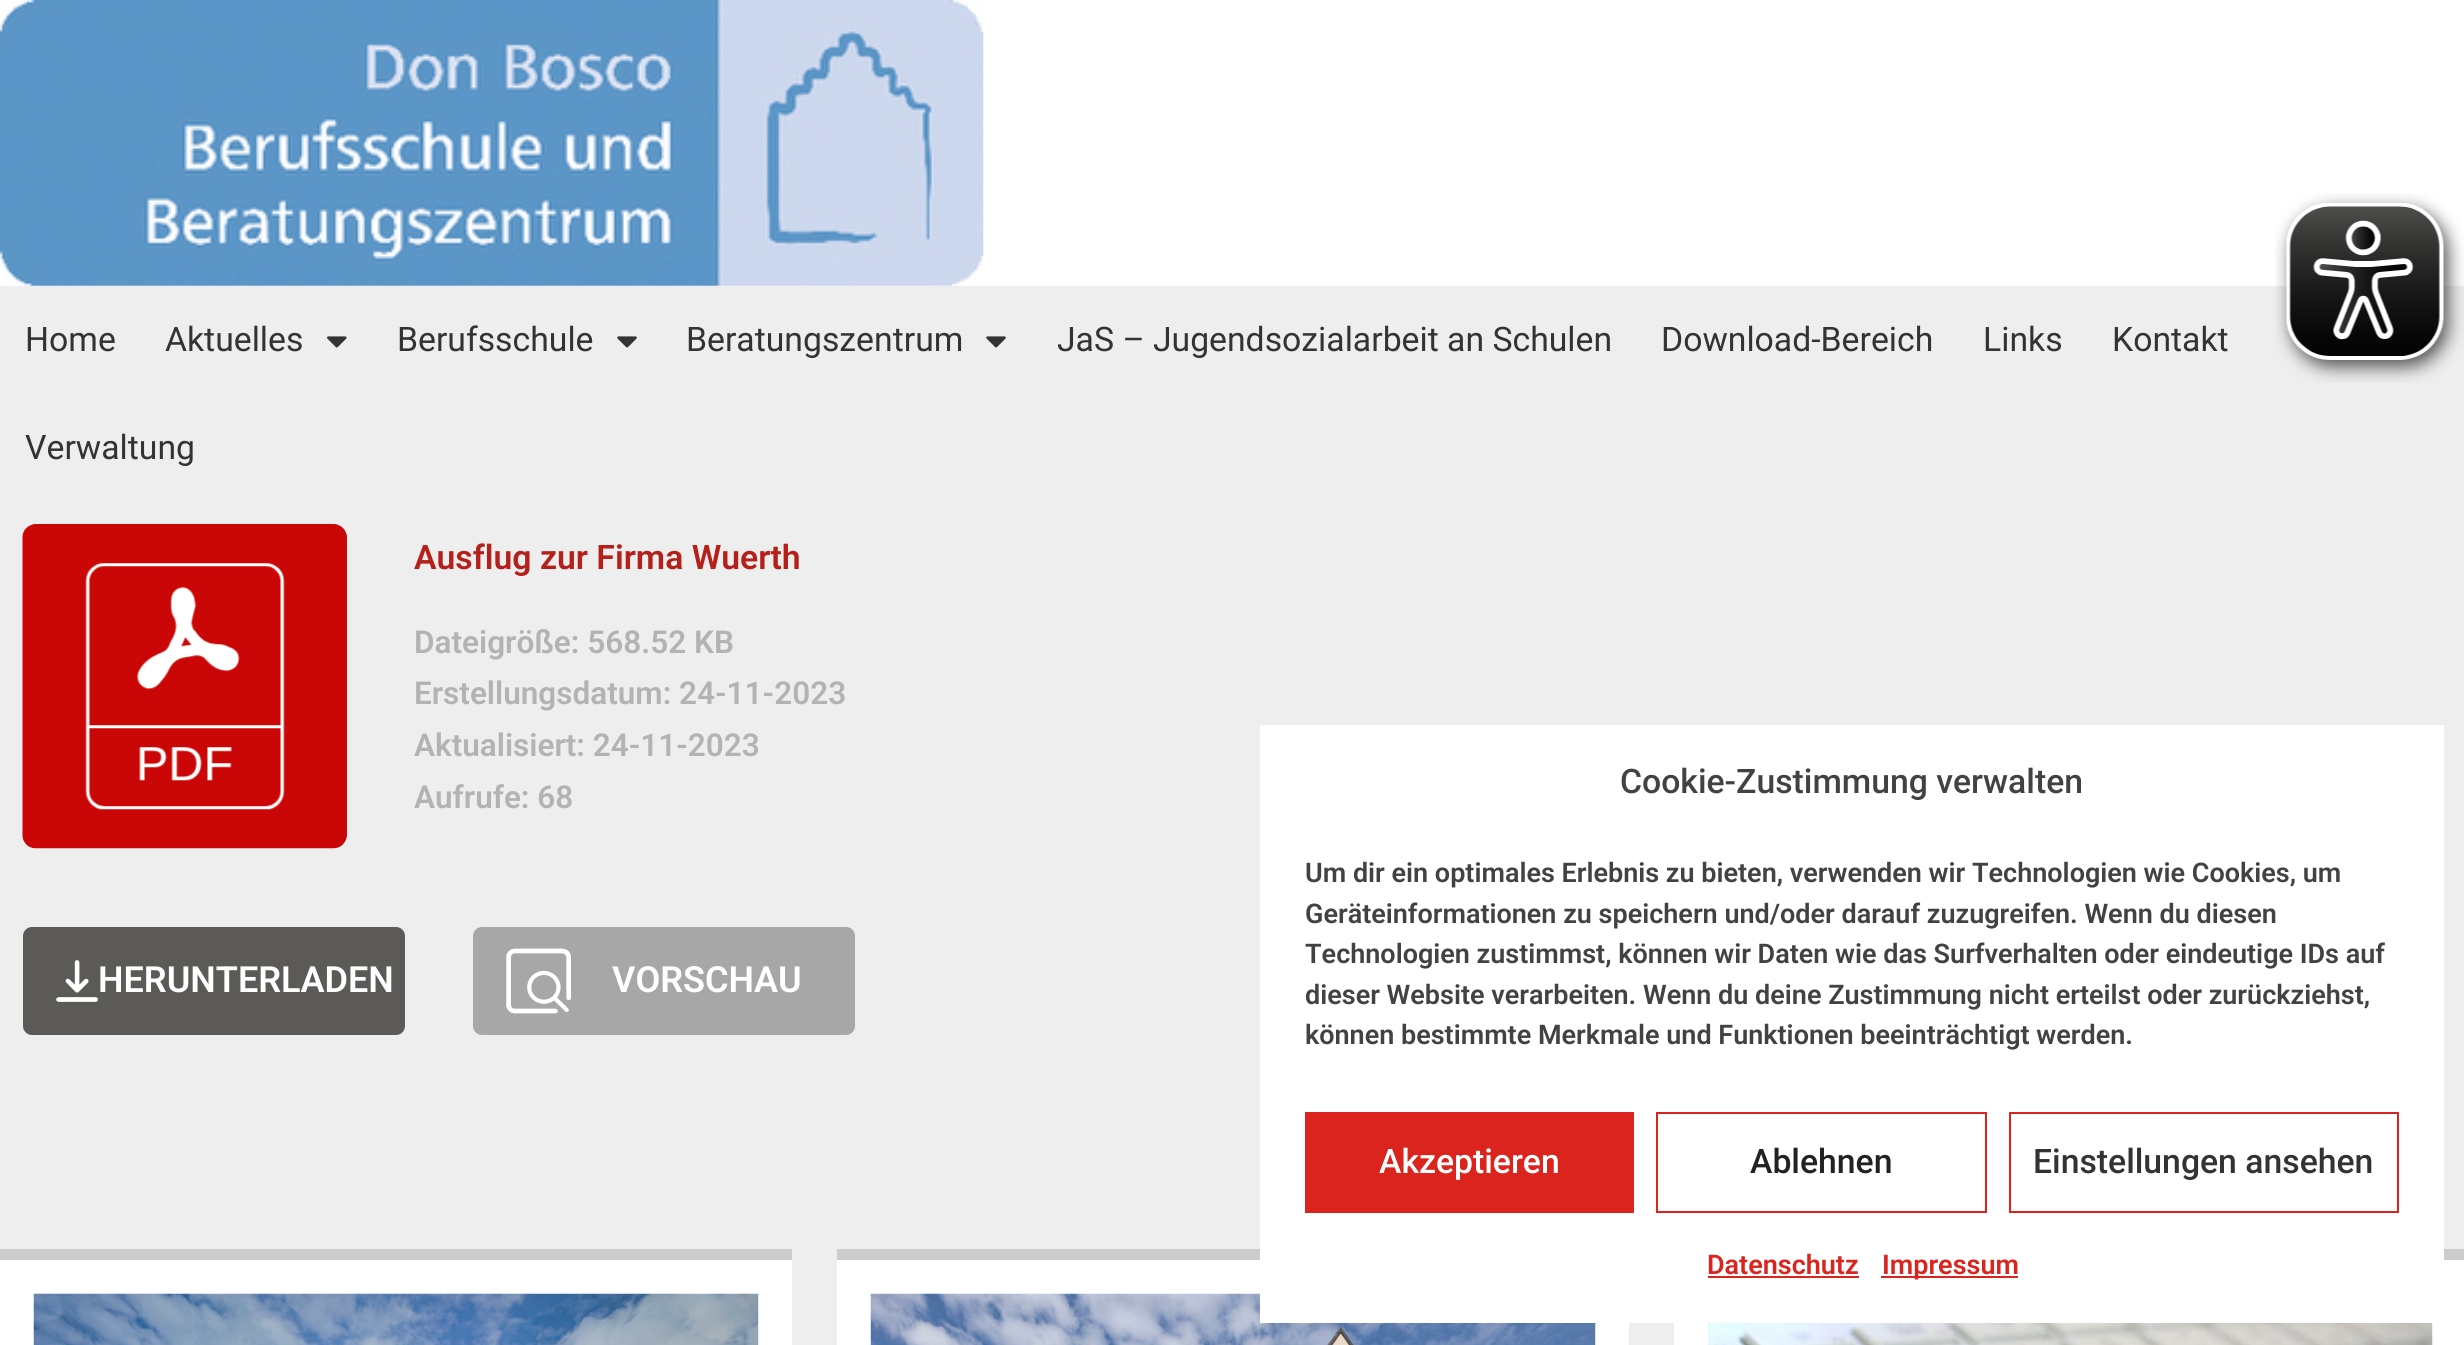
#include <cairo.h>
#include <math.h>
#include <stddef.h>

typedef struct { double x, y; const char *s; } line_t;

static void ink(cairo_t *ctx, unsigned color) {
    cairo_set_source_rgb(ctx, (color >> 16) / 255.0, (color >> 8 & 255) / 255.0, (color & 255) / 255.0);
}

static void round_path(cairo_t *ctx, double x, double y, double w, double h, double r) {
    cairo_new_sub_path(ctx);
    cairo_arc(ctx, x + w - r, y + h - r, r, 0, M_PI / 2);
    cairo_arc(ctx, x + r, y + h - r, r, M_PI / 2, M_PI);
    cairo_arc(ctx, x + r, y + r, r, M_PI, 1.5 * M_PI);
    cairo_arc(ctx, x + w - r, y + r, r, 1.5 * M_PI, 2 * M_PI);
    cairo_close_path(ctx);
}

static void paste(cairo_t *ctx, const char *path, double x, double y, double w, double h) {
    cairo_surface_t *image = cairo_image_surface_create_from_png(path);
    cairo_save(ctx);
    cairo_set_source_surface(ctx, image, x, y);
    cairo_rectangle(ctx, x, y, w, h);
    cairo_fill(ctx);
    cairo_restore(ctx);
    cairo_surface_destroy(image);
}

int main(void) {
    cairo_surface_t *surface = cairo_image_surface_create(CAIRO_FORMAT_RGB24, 2464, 1345);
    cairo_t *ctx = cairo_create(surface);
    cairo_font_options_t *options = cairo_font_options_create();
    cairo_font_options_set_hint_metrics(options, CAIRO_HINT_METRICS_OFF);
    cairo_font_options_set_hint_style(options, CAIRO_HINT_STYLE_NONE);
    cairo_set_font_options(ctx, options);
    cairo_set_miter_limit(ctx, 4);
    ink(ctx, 0xEEEEEE);
    cairo_paint(ctx);
    ink(ctx, 0xFFFFFF);
    cairo_rectangle(ctx, 0, 0, 2464, 286);
    cairo_fill(ctx);
    paste(ctx, "media/1.png", 0, 0, 984, 286);
    cairo_select_font_face(ctx, "Roboto", CAIRO_FONT_SLANT_NORMAL, CAIRO_FONT_WEIGHT_NORMAL);
    cairo_set_font_size(ctx, 33.75);
    ink(ctx, 0x333333);
    cairo_move_to(ctx, 25, 351);
    cairo_show_text(ctx, "Home");
    cairo_move_to(ctx, 165, 351);
    cairo_show_text(ctx, "Aktuelles");
    paste(ctx, "media/2.png", 327, 336, 20, 12);
    cairo_move_to(ctx, 397, 351);
    cairo_show_text(ctx, "Berufsschule");
    paste(ctx, "media/3.png", 617, 336, 20, 12);
    cairo_move_to(ctx, 686, 351);
    cairo_show_text(ctx, "Beratungszentrum");
    paste(ctx, "media/3.png", 986, 336, 20, 12);
    {
        static const line_t items[] = {
            {1057, 351, "JaS – Jugendsozialarbeit an Schulen"},
            {1661, 351, "Download-Bereich"},
            {1983, 351, "Links"},
            {2112, 351, "Kontakt"},
            {25, 459, "Verwaltung"},
        };
        for (size_t i = 0; i < sizeof items / sizeof *items; i++) {
            cairo_move_to(ctx, items[i].x, items[i].y);
            cairo_show_text(ctx, items[i].s);
        }
    }
    paste(ctx, "media/4.png", 2275, 193, 189, 190);
    ink(ctx, 0xCB0606);
    round_path(ctx, 23, 524, 324, 324, 14);
    cairo_fill(ctx);
    paste(ctx, "media/5.png", 22, 524, 325, 325);
    cairo_select_font_face(ctx, "Roboto SemiBold", CAIRO_FONT_SLANT_NORMAL, CAIRO_FONT_WEIGHT_NORMAL);
    ink(ctx, 0xB5211A);
    cairo_move_to(ctx, 414, 569);
    cairo_show_text(ctx, "Ausflug zur Firma Wuerth");
    cairo_set_font_size(ctx, 31.5);
    ink(ctx, 0xB3B3B3);
    {
        static const line_t items[] = {
            {414, 653, "Dateigröße: 568.52 KB"},
            {414, 704, "Erstellungsdatum: 24-11-2023"},
            {414, 756, "Aktualisiert: 24-11-2023"},
            {414, 808, "Aufrufe: 68"},
        };
        for (size_t i = 0; i < sizeof items / sizeof *items; i++) {
            cairo_move_to(ctx, items[i].x, items[i].y);
            cairo_show_text(ctx, items[i].s);
        }
    }
    ink(ctx, 0x5C5A57);
    round_path(ctx, 23, 927, 382, 108, 9);
    cairo_fill(ctx);
    paste(ctx, "media/6.png", 56, 960, 42, 42);
    cairo_set_font_size(ctx, 36);
    ink(ctx, 0xFFFFFF);
    cairo_move_to(ctx, 98, 992);
    cairo_show_text(ctx, "HERUNTERLADEN");
    ink(ctx, 0xA7A7A7);
    round_path(ctx, 473, 927, 382, 108, 9);
    cairo_fill(ctx);
    paste(ctx, "media/7.png", 506, 948, 65, 66);
    ink(ctx, 0xFFFFFF);
    cairo_move_to(ctx, 612, 992);
    cairo_show_text(ctx, "VORSCHAU");
    cairo_rectangle(ctx, 837, 1260, 792, 85);
    cairo_fill(ctx);
    paste(ctx, "media/9.png", 870, 1293, 726, 52);
    cairo_rectangle(ctx, 1674, 1260, 790, 85);
    cairo_fill(ctx);
    cairo_rectangle(ctx, 1260, 725, 1184, 598);
    cairo_fill(ctx);
    cairo_select_font_face(ctx, "Roboto Medium", CAIRO_FONT_SLANT_NORMAL, CAIRO_FONT_WEIGHT_NORMAL);
    cairo_set_font_size(ctx, 33.75);
    ink(ctx, 0x424242);
    cairo_move_to(ctx, 1620, 793);
    cairo_show_text(ctx, "Cookie-Zustimmung verwalten");
    cairo_select_font_face(ctx, "Roboto SemiBold", CAIRO_FONT_SLANT_NORMAL, CAIRO_FONT_WEIGHT_NORMAL);
    cairo_set_font_size(ctx, 27);
    {
        static const line_t items[] = {
            {1305, 882, "Um dir ein optimales Erlebnis zu bieten, verwenden wir Technologien wie Cookies, um"},
            {1305, 923, "Geräteinformationen zu speichern und/oder darauf zuzugreifen. Wenn du diesen"},
            {1305, 963, "Technologien zustimmst, können wir Daten wie das Surfverhalten oder eindeutige IDs auf"},
            {1305, 1004, "dieser Website verarbeiten. Wenn du deine Zustimmung nicht erteilst oder zurückziehst,"},
            {1305, 1044, "können bestimmte Merkmale und Funktionen beeinträchtigt werden."},
        };
        for (size_t i = 0; i < sizeof items / sizeof *items; i++) {
            cairo_move_to(ctx, items[i].x, items[i].y);
            cairo_show_text(ctx, items[i].s);
        }
    }
    ink(ctx, 0xDA241D);
    cairo_rectangle(ctx, 1305, 1112, 329, 101);
    cairo_fill(ctx);
    cairo_select_font_face(ctx, "Roboto Medium", CAIRO_FONT_SLANT_NORMAL, CAIRO_FONT_WEIGHT_NORMAL);
    cairo_set_font_size(ctx, 33.75);
    ink(ctx, 0xFFFFFF);
    cairo_move_to(ctx, 1379, 1173);
    cairo_show_text(ctx, "Akzeptieren");
    cairo_rectangle(ctx, 1657, 1113, 329, 99);
    ink(ctx, 0xDA241D);
    cairo_stroke(ctx);
    ink(ctx, 0x222222);
    cairo_move_to(ctx, 1750, 1173);
    cairo_show_text(ctx, "Ablehnen");
    cairo_rectangle(ctx, 2010, 1113, 388, 99);
    ink(ctx, 0xDA241D);
    cairo_stroke(ctx);
    ink(ctx, 0x333333);
    cairo_move_to(ctx, 2033, 1173);
    cairo_show_text(ctx, "Einstellungen ansehen");
    cairo_select_font_face(ctx, "Roboto SemiBold", CAIRO_FONT_SLANT_NORMAL, CAIRO_FONT_WEIGHT_NORMAL);
    cairo_set_font_size(ctx, 27);
    ink(ctx, 0xDA241D);
    cairo_move_to(ctx, 1707, 1274);
    cairo_show_text(ctx, "Datenschutz");
    cairo_rectangle(ctx, 1708, 1276, 151, 2);
    cairo_fill(ctx);
    cairo_rectangle(ctx, 1881, 1276, 137, 2);
    cairo_fill(ctx);
    cairo_move_to(ctx, 1882, 1274);
    cairo_show_text(ctx, "Impressum");
    ink(ctx, 0xFFFFFF);
    cairo_rectangle(ctx, 0, 1260, 792, 85);
    cairo_fill(ctx);
    ink(ctx, 0xCCCCCC);
    cairo_rectangle(ctx, 0, 1249, 792, 11);
    cairo_fill(ctx);
    paste(ctx, "media/8.png", 33, 1293, 726, 52);
    cairo_rectangle(ctx, 837, 1249, 423, 11);
    cairo_fill(ctx);
    cairo_rectangle(ctx, 2444, 1249, 20, 11);
    cairo_fill(ctx);
    paste(ctx, "media/10.png", 1707, 1323, 726, 22);
    cairo_surface_write_to_png(surface, "image.png");
    cairo_font_options_destroy(options);
    cairo_destroy(ctx);
    cairo_surface_destroy(surface);
    return 0;
}
